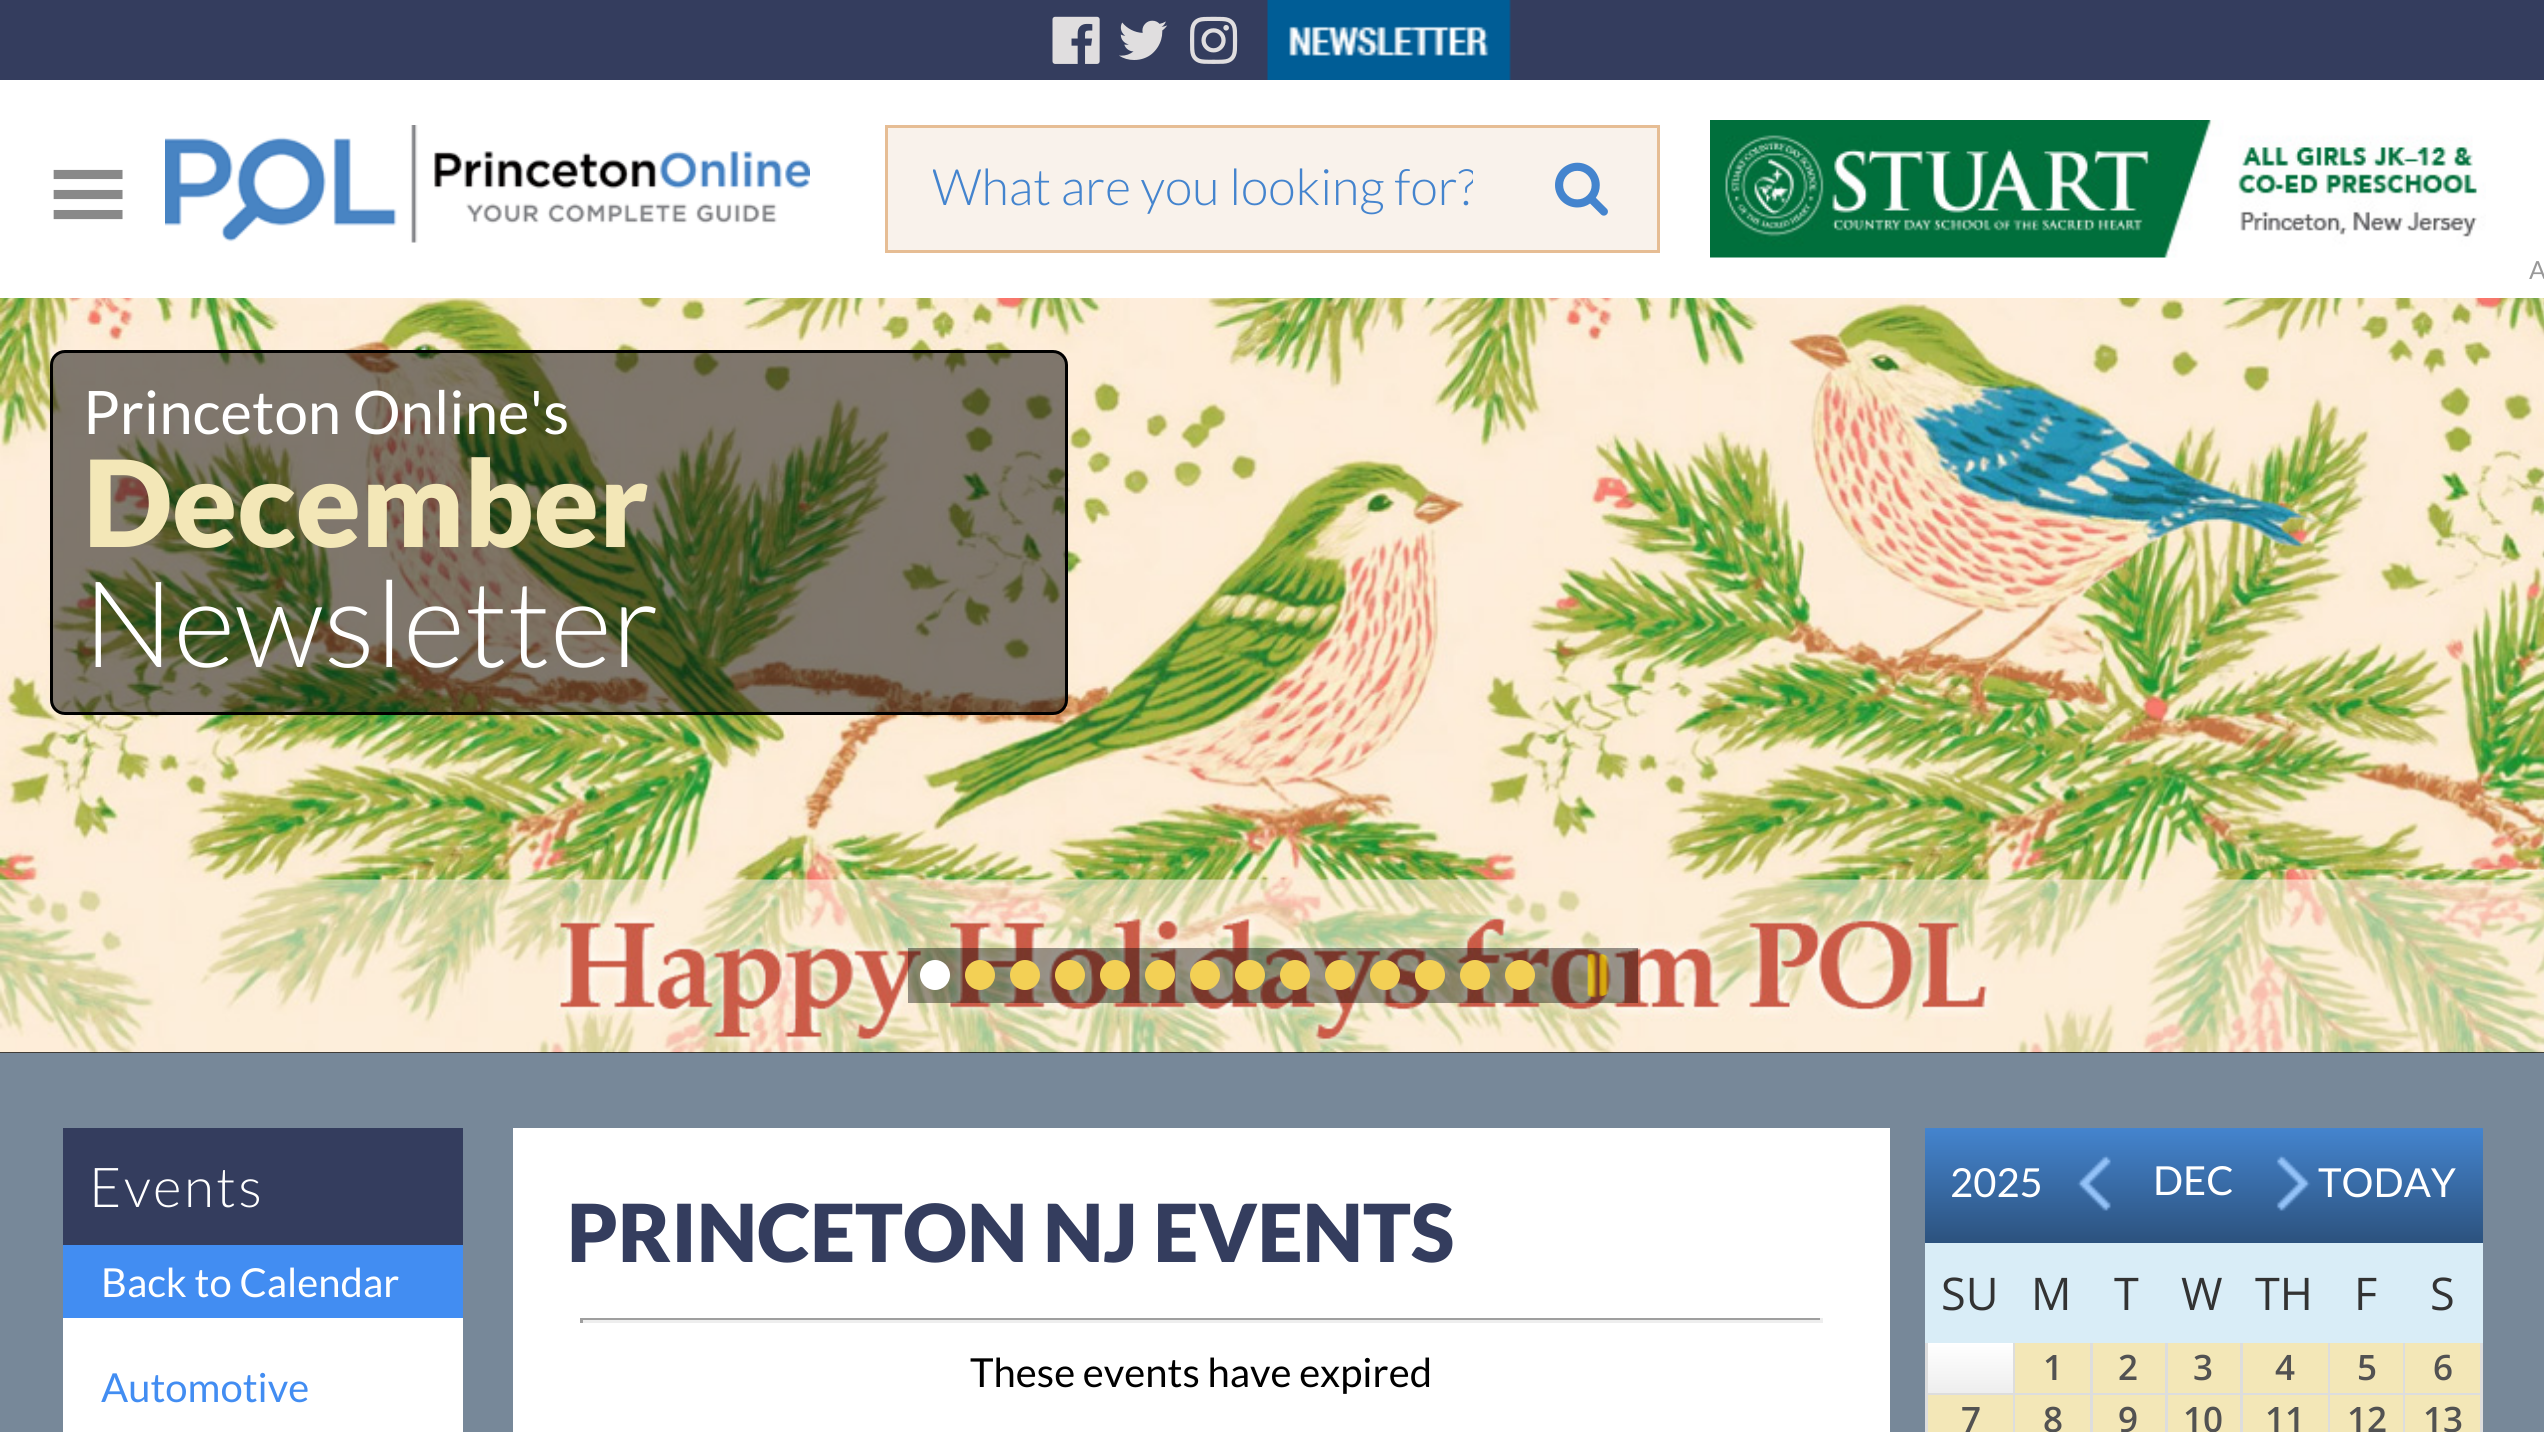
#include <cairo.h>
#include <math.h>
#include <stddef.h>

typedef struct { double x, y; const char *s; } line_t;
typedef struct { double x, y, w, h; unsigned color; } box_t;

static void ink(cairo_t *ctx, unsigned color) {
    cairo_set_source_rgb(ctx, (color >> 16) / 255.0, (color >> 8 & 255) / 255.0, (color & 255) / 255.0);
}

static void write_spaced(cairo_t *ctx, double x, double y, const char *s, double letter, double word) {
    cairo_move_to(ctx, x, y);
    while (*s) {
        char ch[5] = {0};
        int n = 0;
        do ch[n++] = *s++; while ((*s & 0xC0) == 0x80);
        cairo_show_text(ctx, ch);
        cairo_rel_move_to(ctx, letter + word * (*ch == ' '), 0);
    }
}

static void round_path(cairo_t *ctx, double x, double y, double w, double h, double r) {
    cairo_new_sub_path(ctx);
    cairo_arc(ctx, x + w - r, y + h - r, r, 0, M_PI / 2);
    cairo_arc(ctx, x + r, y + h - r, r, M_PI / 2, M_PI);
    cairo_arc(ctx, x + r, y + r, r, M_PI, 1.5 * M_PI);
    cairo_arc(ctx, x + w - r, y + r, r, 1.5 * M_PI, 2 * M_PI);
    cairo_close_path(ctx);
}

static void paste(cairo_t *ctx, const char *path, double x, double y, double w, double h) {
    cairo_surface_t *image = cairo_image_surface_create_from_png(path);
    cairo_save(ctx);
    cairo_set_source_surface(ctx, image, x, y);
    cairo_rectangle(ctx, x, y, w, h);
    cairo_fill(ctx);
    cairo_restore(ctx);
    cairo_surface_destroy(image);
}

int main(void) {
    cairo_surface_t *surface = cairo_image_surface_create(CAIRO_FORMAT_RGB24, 2544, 1432);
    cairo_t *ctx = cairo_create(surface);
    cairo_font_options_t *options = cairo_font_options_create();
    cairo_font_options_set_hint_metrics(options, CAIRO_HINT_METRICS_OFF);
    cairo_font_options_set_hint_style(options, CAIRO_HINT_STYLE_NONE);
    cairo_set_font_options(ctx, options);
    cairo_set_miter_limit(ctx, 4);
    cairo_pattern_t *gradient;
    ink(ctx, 0x778899);
    cairo_paint(ctx);
    ink(ctx, 0xFFFFFF);
    cairo_rectangle(ctx, 0, 80, 2544, 218);
    cairo_fill(ctx);
    ink(ctx, 0x343D5E);
    cairo_rectangle(ctx, 0, 0, 2544, 80);
    cairo_fill(ctx);
    paste(ctx, "media/1.png", 1052, 16, 48, 48);
    paste(ctx, "media/2.png", 1119, 20, 49, 40);
    paste(ctx, "media/3.png", 1190, 16, 48, 48);
    paste(ctx, "media/4.png", 1267, 0, 244, 80);
    paste(ctx, "media/5.png", 165, 125, 645, 118);
    ink(ctx, 0xF9F2EB);
    cairo_rectangle(ctx, 886.5, 126.5, 772, 125);
    cairo_fill_preserve(ctx);
    ink(ctx, 0xE6BD94);
    cairo_set_line_width(ctx, 3);
    cairo_stroke(ctx);
    cairo_save(ctx);
    cairo_rectangle(ctx, 933, 155, 540, 60);
    cairo_clip(ctx);
    cairo_select_font_face(ctx, "Lato Light", CAIRO_FONT_SLANT_NORMAL, CAIRO_FONT_WEIGHT_NORMAL);
    cairo_set_font_size(ctx, 50.25);
    ink(ctx, 0x4484CE);
    cairo_move_to(ctx, 932, 205);
    cairo_show_text(ctx, "What are you looking for?");
    cairo_restore(ctx);
    paste(ctx, "media/6.png", 1555, 162, 53, 54);
    paste(ctx, "media/7.png", 1710, 120, 776, 138);
    cairo_select_font_face(ctx, "Lato", CAIRO_FONT_SLANT_NORMAL, CAIRO_FONT_WEIGHT_NORMAL);
    cairo_set_font_size(ctx, 25);
    ink(ctx, 0x999999);
    cairo_move_to(ctx, 2529, 279);
    cairo_show_text(ctx, "A");
    ink(ctx, 0x000000);
    cairo_rectangle(ctx, 0, 1052, 2544, 1);
    cairo_fill(ctx);
    paste(ctx, "media/8.png", 0, 298, 2544, 755);
    cairo_set_source_rgba(ctx, 0, 0, 0, 0.5);
    round_path(ctx, 51.5, 351.5, 1015, 362, 13.5);
    cairo_fill_preserve(ctx);
    ink(ctx, 0x000000);
    cairo_stroke(ctx);
    cairo_set_font_size(ctx, 60);
    ink(ctx, 0xFFFFFF);
    cairo_move_to(ctx, 83, 434);
    cairo_show_text(ctx, "Princeton Online's");
    cairo_select_font_face(ctx, "Lato Black", CAIRO_FONT_SLANT_NORMAL, CAIRO_FONT_WEIGHT_NORMAL);
    cairo_set_font_size(ctx, 120);
    ink(ctx, 0xF3E7B7);
    cairo_move_to(ctx, 83, 547);
    cairo_show_text(ctx, "December");
    cairo_select_font_face(ctx, "Lato Light", CAIRO_FONT_SLANT_NORMAL, CAIRO_FONT_WEIGHT_NORMAL);
    ink(ctx, 0xFFFFFF);
    cairo_move_to(ctx, 83, 667);
    cairo_show_text(ctx, "Newsletter");
    cairo_set_source_rgba(ctx, 0, 0, 0, 0.4);
    cairo_rectangle(ctx, 908, 948, 730, 55);
    cairo_fill(ctx);
    ink(ctx, 0xFFFFFF);
    cairo_arc(ctx, 935, 975, 15, 0, 2 * M_PI);
    cairo_fill(ctx);
    ink(ctx, 0xF3D055);
    cairo_arc(ctx, 980, 975, 15, 0, 2 * M_PI);
    cairo_fill(ctx);
    cairo_arc(ctx, 1025, 975, 15, 0, 2 * M_PI);
    cairo_fill(ctx);
    cairo_arc(ctx, 1070, 975, 15, 0, 2 * M_PI);
    cairo_fill(ctx);
    cairo_arc(ctx, 1115, 975, 15, 0, 2 * M_PI);
    cairo_fill(ctx);
    cairo_arc(ctx, 1160, 975, 15, 0, 2 * M_PI);
    cairo_fill(ctx);
    cairo_arc(ctx, 1205, 975, 15, 0, 2 * M_PI);
    cairo_fill(ctx);
    cairo_arc(ctx, 1250, 975, 15, 0, 2 * M_PI);
    cairo_fill(ctx);
    cairo_arc(ctx, 1295, 975, 15, 0, 2 * M_PI);
    cairo_fill(ctx);
    cairo_arc(ctx, 1340, 975, 15, 0, 2 * M_PI);
    cairo_fill(ctx);
    cairo_arc(ctx, 1385, 975, 15, 0, 2 * M_PI);
    cairo_fill(ctx);
    cairo_arc(ctx, 1430, 975, 15, 0, 2 * M_PI);
    cairo_fill(ctx);
    cairo_arc(ctx, 1475, 975, 15, 0, 2 * M_PI);
    cairo_fill(ctx);
    cairo_arc(ctx, 1520, 975, 15, 0, 2 * M_PI);
    cairo_fill(ctx);
    paste(ctx, "media/9.png", 1587, 953, 23, 45);
    ink(ctx, 0x343D5E);
    cairo_rectangle(ctx, 63, 1128, 400, 117);
    cairo_fill(ctx);
    cairo_set_font_size(ctx, 55);
    ink(ctx, 0xFFFFFF);
    write_spaced(ctx, 89, 1207, "Events", 2.5, 0);
    ink(ctx, 0x428DF2);
    cairo_rectangle(ctx, 63, 1245, 400, 73);
    cairo_fill(ctx);
    cairo_select_font_face(ctx, "Lato", CAIRO_FONT_SLANT_NORMAL, CAIRO_FONT_WEIGHT_NORMAL);
    cairo_set_font_size(ctx, 40);
    ink(ctx, 0xFFFFFF);
    cairo_move_to(ctx, 101, 1297);
    cairo_show_text(ctx, "Back to Calendar");
    cairo_rectangle(ctx, 63, 1318, 400, 114);
    cairo_fill(ctx);
    ink(ctx, 0x428DF2);
    cairo_move_to(ctx, 101, 1402);
    cairo_show_text(ctx, "Automotive");
    ink(ctx, 0xFFFFFF);
    cairo_rectangle(ctx, 513, 1128, 1377, 304);
    cairo_fill(ctx);
    cairo_select_font_face(ctx, "Lato Black", CAIRO_FONT_SLANT_NORMAL, CAIRO_FONT_WEIGHT_NORMAL);
    cairo_set_font_size(ctx, 80);
    ink(ctx, 0x343D5E);
    cairo_move_to(ctx, 567, 1262);
    cairo_show_text(ctx, "PRINCETON NJ EVENTS");
    {
        static const box_t items[] = {
            {580, 1318, 1243, 2, 0x9F9F9F},
            {1820, 1318, 3, 5, 0xEEEEEE},
            {580, 1320, 1243, 3, 0xEEEEEE},
            {580, 1318, 3, 5, 0x9F9F9F},
        };
        for (size_t i = 0; i < sizeof items / sizeof *items; i++) {
            ink(ctx, items[i].color);
            cairo_rectangle(ctx, items[i].x, items[i].y, items[i].w, items[i].h);
            cairo_fill(ctx);
        }
    }
    cairo_select_font_face(ctx, "Lato", CAIRO_FONT_SLANT_NORMAL, CAIRO_FONT_WEIGHT_NORMAL);
    cairo_set_font_size(ctx, 40);
    ink(ctx, 0x000000);
    cairo_move_to(ctx, 970, 1387);
    cairo_show_text(ctx, "These events have expired");
    gradient = cairo_pattern_create_linear(2204, 1128, 2204, 1243);
    cairo_pattern_add_color_stop_rgba(gradient, 0, 0.267, 0.518, 0.808, 1);
    cairo_pattern_add_color_stop_rgba(gradient, 1, 0.173, 0.322, 0.494, 1);
    cairo_set_source(ctx, gradient);
    cairo_pattern_destroy(gradient);
    cairo_rectangle(ctx, 1925, 1128, 558, 115);
    cairo_fill(ctx);
    ink(ctx, 0xFFFFFF);
    cairo_move_to(ctx, 1950, 1197);
    cairo_show_text(ctx, "2025");
    paste(ctx, "media/10.png", 2077, 1155, 34, 56);
    cairo_move_to(ctx, 2153, 1195);
    cairo_show_text(ctx, "DEC");
    paste(ctx, "media/11.png", 2276, 1155, 35, 56);
    cairo_move_to(ctx, 2318, 1197);
    cairo_show_text(ctx, "TODAY");
    ink(ctx, 0xD9EDF7);
    cairo_rectangle(ctx, 1925, 1243, 558, 100);
    cairo_fill(ctx);
    cairo_select_font_face(ctx, "Open Sans", CAIRO_FONT_SLANT_NORMAL, CAIRO_FONT_WEIGHT_NORMAL);
    cairo_set_font_size(ctx, 45);
    ink(ctx, 0x333333);
    {
        static const line_t items[] = {
            {1941, 1310, "SU"},
            {2031, 1310, "M"},
            {2114, 1310, "T"},
            {2181, 1310, "W"},
            {2255, 1310, "TH"},
            {2354, 1310, "F"},
            {2430, 1310, "S"},
        };
        for (size_t i = 0; i < sizeof items / sizeof *items; i++) {
            cairo_move_to(ctx, items[i].x, items[i].y);
            cairo_show_text(ctx, items[i].s);
        }
    }
    gradient = cairo_pattern_create_linear(1970, 1343, 1970, 1393);
    cairo_pattern_add_color_stop_rgba(gradient, 0, 1, 1, 1, 1);
    cairo_pattern_add_color_stop_rgba(gradient, 1, 0.933, 0.933, 0.933, 1);
    cairo_set_source(ctx, gradient);
    cairo_pattern_destroy(gradient);
    cairo_rectangle(ctx, 1928, 1343, 85, 50);
    cairo_fill(ctx);
    {
        static const box_t items[] = {
            {1925, 1393, 478, 2, 0xDDDDDD},
            {1925, 1343, 3, 89, 0xDDDDDD},
            {2013, 1343, 3, 52, 0xDDDDDD},
            {2015, 1343, 75, 50, 0xF3E7B7},
        };
        for (size_t i = 0; i < sizeof items / sizeof *items; i++) {
            ink(ctx, items[i].color);
            cairo_rectangle(ctx, items[i].x, items[i].y, items[i].w, items[i].h);
            cairo_fill(ctx);
        }
    }
    cairo_select_font_face(ctx, "Open Sans SemiBold", CAIRO_FONT_SLANT_NORMAL, CAIRO_FONT_WEIGHT_NORMAL);
    cairo_set_font_size(ctx, 35);
    ink(ctx, 0x525252);
    cairo_move_to(ctx, 2043, 1380);
    cairo_show_text(ctx, "1");
    ink(ctx, 0xDDDDDD);
    cairo_rectangle(ctx, 2090, 1343, 3, 89);
    cairo_fill(ctx);
    ink(ctx, 0xF3E7B7);
    cairo_rectangle(ctx, 2093, 1343, 72, 50);
    cairo_fill(ctx);
    ink(ctx, 0x525252);
    cairo_move_to(ctx, 2118, 1380);
    cairo_show_text(ctx, "2");
    ink(ctx, 0xDDDDDD);
    cairo_rectangle(ctx, 2165, 1343, 3, 89);
    cairo_fill(ctx);
    ink(ctx, 0xF3E7B7);
    cairo_rectangle(ctx, 2168, 1343, 72, 50);
    cairo_fill(ctx);
    ink(ctx, 0x525252);
    cairo_move_to(ctx, 2193, 1380);
    cairo_show_text(ctx, "3");
    ink(ctx, 0xDDDDDD);
    cairo_rectangle(ctx, 2240, 1343, 3, 89);
    cairo_fill(ctx);
    ink(ctx, 0xF3E7B7);
    cairo_rectangle(ctx, 2243, 1343, 85, 50);
    cairo_fill(ctx);
    ink(ctx, 0x525252);
    cairo_move_to(ctx, 2275, 1380);
    cairo_show_text(ctx, "4");
    ink(ctx, 0xDDDDDD);
    cairo_rectangle(ctx, 2328, 1343, 3, 52);
    cairo_fill(ctx);
    ink(ctx, 0xF3E7B7);
    cairo_rectangle(ctx, 2330, 1343, 73, 50);
    cairo_fill(ctx);
    ink(ctx, 0x525252);
    cairo_move_to(ctx, 2357, 1380);
    cairo_show_text(ctx, "5");
    {
        static const box_t items[] = {
            {2480, 1343, 3, 89, 0xDDDDDD},
            {2403, 1393, 80, 2, 0xDDDDDD},
            {2403, 1343, 3, 52, 0xDDDDDD},
            {2405, 1343, 75, 50, 0xF3E7B7},
        };
        for (size_t i = 0; i < sizeof items / sizeof *items; i++) {
            ink(ctx, items[i].color);
            cairo_rectangle(ctx, items[i].x, items[i].y, items[i].w, items[i].h);
            cairo_fill(ctx);
        }
    }
    ink(ctx, 0x525252);
    cairo_move_to(ctx, 2433, 1380);
    cairo_show_text(ctx, "6");
    ink(ctx, 0xF3E7B7);
    cairo_rectangle(ctx, 1928, 1395, 85, 37);
    cairo_fill(ctx);
    ink(ctx, 0x525252);
    cairo_move_to(ctx, 1961, 1432);
    cairo_show_text(ctx, "7");
    ink(ctx, 0xDDDDDD);
    cairo_rectangle(ctx, 2013, 1395, 2, 37);
    cairo_fill(ctx);
    ink(ctx, 0xF3E7B7);
    cairo_rectangle(ctx, 2015, 1395, 75, 37);
    cairo_fill(ctx);
    ink(ctx, 0x525252);
    cairo_move_to(ctx, 2043, 1432);
    cairo_show_text(ctx, "8");
    ink(ctx, 0xF3E7B7);
    cairo_rectangle(ctx, 2093, 1395, 72, 37);
    cairo_fill(ctx);
    ink(ctx, 0x525252);
    cairo_move_to(ctx, 2118, 1432);
    cairo_show_text(ctx, "9");
    ink(ctx, 0xF3E7B7);
    cairo_rectangle(ctx, 2168, 1395, 72, 37);
    cairo_fill(ctx);
    ink(ctx, 0x525252);
    cairo_move_to(ctx, 2183, 1432);
    cairo_show_text(ctx, "10");
    ink(ctx, 0xF3E7B7);
    cairo_rectangle(ctx, 2243, 1395, 85, 37);
    cairo_fill(ctx);
    ink(ctx, 0x525252);
    cairo_move_to(ctx, 2265, 1432);
    cairo_show_text(ctx, "11");
    ink(ctx, 0xDDDDDD);
    cairo_rectangle(ctx, 2328, 1395, 2, 37);
    cairo_fill(ctx);
    ink(ctx, 0xF3E7B7);
    cairo_rectangle(ctx, 2330, 1395, 73, 37);
    cairo_fill(ctx);
    ink(ctx, 0x525252);
    cairo_move_to(ctx, 2347, 1432);
    cairo_show_text(ctx, "12");
    ink(ctx, 0xDDDDDD);
    cairo_rectangle(ctx, 2403, 1395, 2, 37);
    cairo_fill(ctx);
    ink(ctx, 0xF3E7B7);
    cairo_rectangle(ctx, 2405, 1395, 75, 37);
    cairo_fill(ctx);
    ink(ctx, 0x525252);
    cairo_move_to(ctx, 2423, 1432);
    cairo_show_text(ctx, "13");
    cairo_select_font_face(ctx, "DejaVu Sans", CAIRO_FONT_SLANT_NORMAL, CAIRO_FONT_WEIGHT_NORMAL);
    cairo_set_font_size(ctx, 110);
    ink(ctx, 0x898989);
    cairo_move_to(ctx, 42, 229);
    cairo_show_text(ctx, "≡");
    cairo_surface_write_to_png(surface, "image.png");
    cairo_font_options_destroy(options);
    cairo_destroy(ctx);
    cairo_surface_destroy(surface);
    return 0;
}
